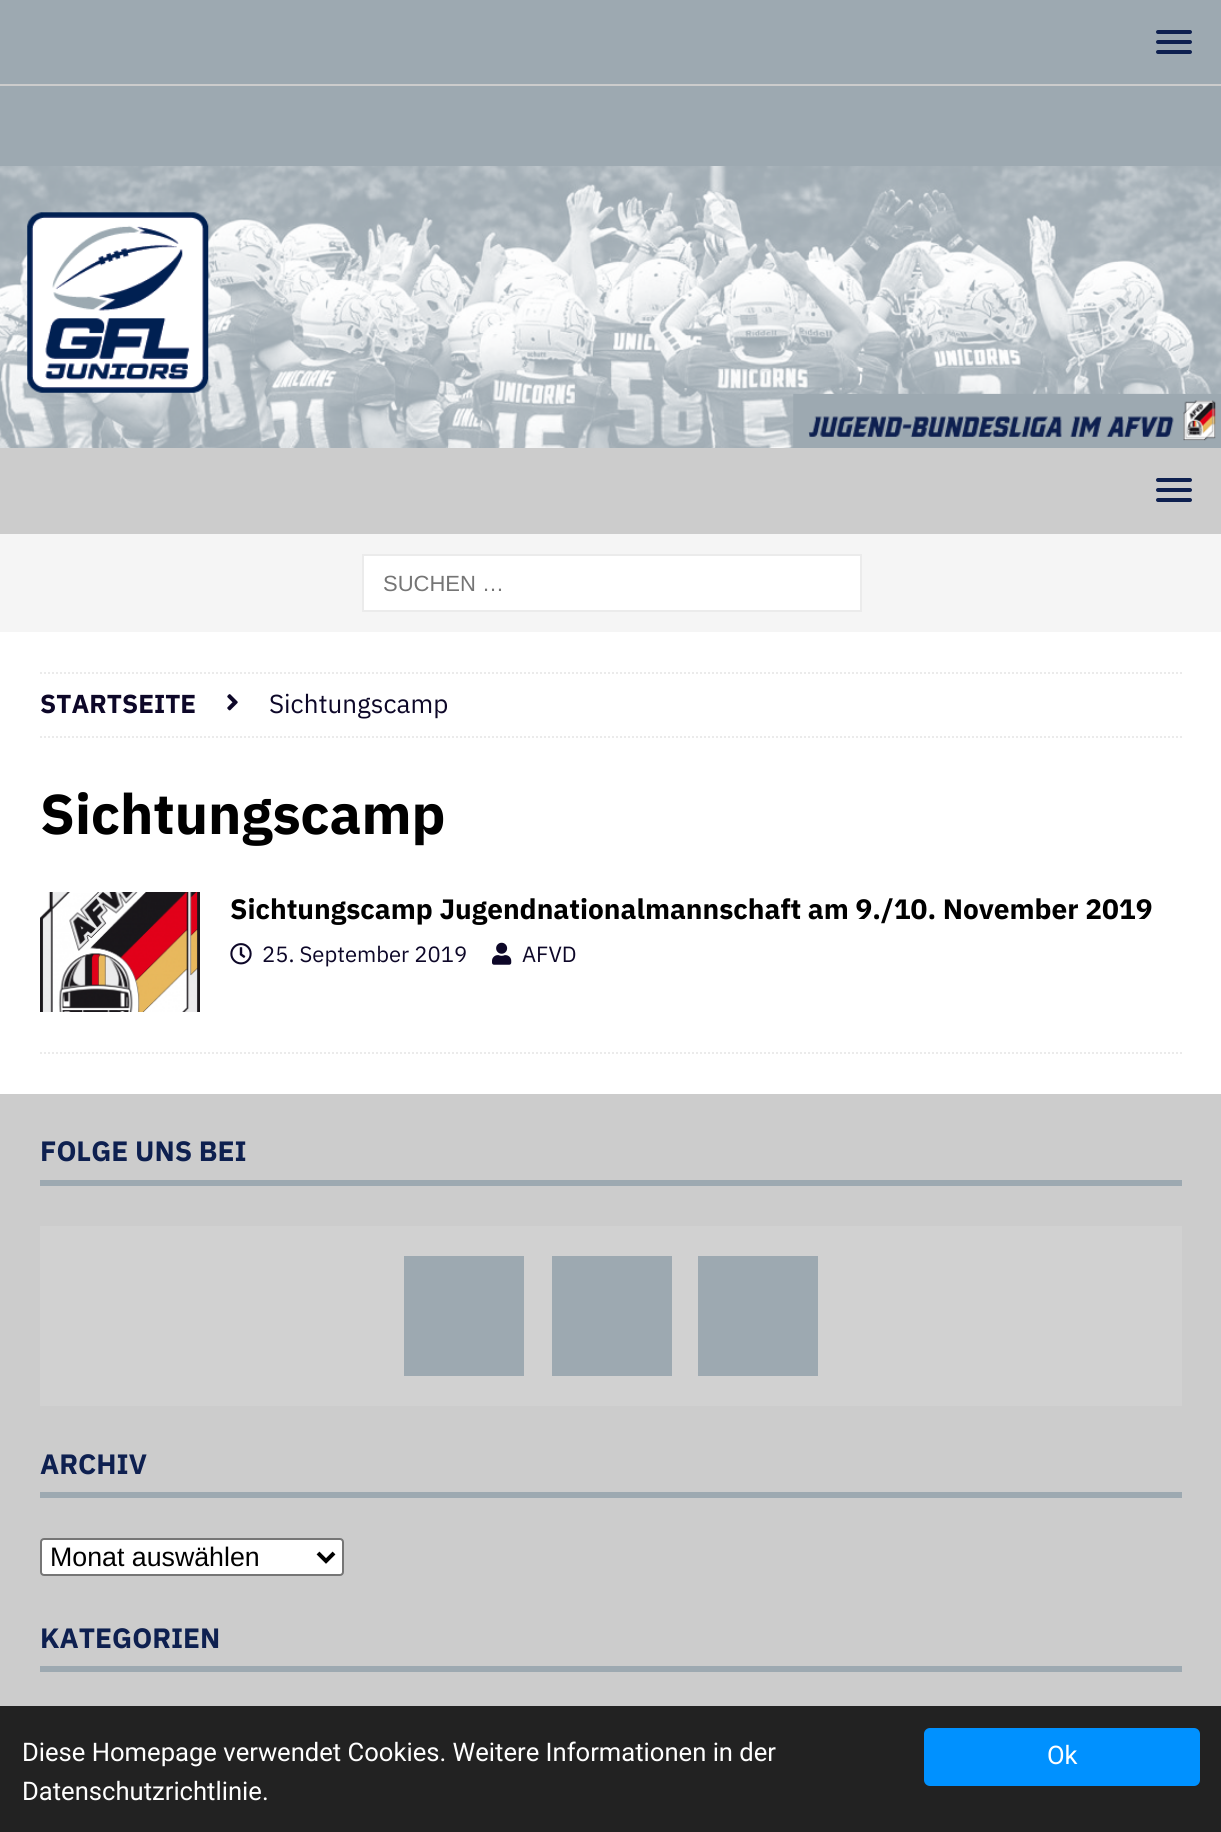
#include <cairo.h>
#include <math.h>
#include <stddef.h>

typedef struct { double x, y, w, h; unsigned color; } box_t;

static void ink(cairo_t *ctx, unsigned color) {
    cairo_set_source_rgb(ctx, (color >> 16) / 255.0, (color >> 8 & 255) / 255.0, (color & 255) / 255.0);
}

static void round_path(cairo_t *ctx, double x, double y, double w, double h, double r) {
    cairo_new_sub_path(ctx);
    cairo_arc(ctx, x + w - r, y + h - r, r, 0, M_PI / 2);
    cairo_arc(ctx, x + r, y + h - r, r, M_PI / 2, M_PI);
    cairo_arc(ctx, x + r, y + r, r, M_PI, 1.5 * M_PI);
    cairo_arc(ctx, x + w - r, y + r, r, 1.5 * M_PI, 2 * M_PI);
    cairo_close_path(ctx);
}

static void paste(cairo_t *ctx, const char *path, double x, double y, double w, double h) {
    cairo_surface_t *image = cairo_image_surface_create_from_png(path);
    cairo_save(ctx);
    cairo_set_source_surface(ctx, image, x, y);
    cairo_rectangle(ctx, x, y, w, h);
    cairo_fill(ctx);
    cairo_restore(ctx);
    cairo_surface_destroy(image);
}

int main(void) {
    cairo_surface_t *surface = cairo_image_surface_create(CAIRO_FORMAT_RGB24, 1221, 1832);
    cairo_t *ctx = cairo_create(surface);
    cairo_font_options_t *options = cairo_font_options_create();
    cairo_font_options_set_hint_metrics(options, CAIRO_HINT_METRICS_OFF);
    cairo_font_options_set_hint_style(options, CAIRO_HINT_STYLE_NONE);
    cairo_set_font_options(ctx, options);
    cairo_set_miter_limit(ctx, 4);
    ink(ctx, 0x9DA9B1);
    cairo_paint(ctx);
    ink(ctx, 0xCCCCCC);
    cairo_rectangle(ctx, 0, 84, 1221, 2);
    cairo_fill(ctx);
    ink(ctx, 0x0E2050);
    round_path(ctx, 1156, 30, 36, 4, 2);
    cairo_fill(ctx);
    round_path(ctx, 1156, 40, 36, 4, 2);
    cairo_fill(ctx);
    round_path(ctx, 1156, 50, 36, 4, 2);
    cairo_fill(ctx);
    paste(ctx, "media/1.png", 0, 166, 1221, 282);
    ink(ctx, 0xCCCCCC);
    cairo_rectangle(ctx, 0, 448, 1221, 86);
    cairo_fill(ctx);
    ink(ctx, 0x0E2050);
    round_path(ctx, 1156, 478, 36, 4, 2);
    cairo_fill(ctx);
    round_path(ctx, 1156, 488, 36, 4, 2);
    cairo_fill(ctx);
    round_path(ctx, 1156, 498, 36, 4, 2);
    cairo_fill(ctx);
    ink(ctx, 0xF5F5F5);
    cairo_rectangle(ctx, 0, 534, 1221, 98);
    cairo_fill(ctx);
    ink(ctx, 0xFFFFFF);
    cairo_rectangle(ctx, 363, 555, 498, 56);
    cairo_fill_preserve(ctx);
    ink(ctx, 0xEBEBEB);
    cairo_stroke(ctx);
    cairo_select_font_face(ctx, "Liberation Sans", CAIRO_FONT_SLANT_NORMAL, CAIRO_FONT_WEIGHT_NORMAL);
    cairo_set_font_size(ctx, 22);
    ink(ctx, 0x757575);
    cairo_move_to(ctx, 383, 591);
    cairo_show_text(ctx, "SUCHEN …");
    ink(ctx, 0xFFFFFF);
    cairo_rectangle(ctx, 0, 632, 1221, 462);
    cairo_fill(ctx);
    cairo_new_path(ctx);
    cairo_move_to(ctx, 40, 673);
    cairo_line_to(ctx, 1182, 673);
    ink(ctx, 0xEBEBEB);
    cairo_set_dash(ctx, (double[]){2, 2}, 2, 0);
    cairo_stroke(ctx);
    cairo_new_path(ctx);
    cairo_move_to(ctx, 40, 737);
    cairo_line_to(ctx, 1182, 737);
    cairo_stroke(ctx);
    cairo_select_font_face(ctx, "IBM Plex Sans", CAIRO_FONT_SLANT_NORMAL, CAIRO_FONT_WEIGHT_BOLD);
    cairo_set_font_size(ctx, 26);
    ink(ctx, 0x0D0728);
    cairo_move_to(ctx, 40, 713);
    cairo_show_text(ctx, "STARTSEITE");
    paste(ctx, "media/2.png", 227, 694, 11, 17);
    cairo_select_font_face(ctx, "IBM Plex Sans", CAIRO_FONT_SLANT_NORMAL, CAIRO_FONT_WEIGHT_NORMAL);
    cairo_move_to(ctx, 269, 713);
    cairo_show_text(ctx, "Sichtungscamp");
    cairo_select_font_face(ctx, "IBM Plex Sans", CAIRO_FONT_SLANT_NORMAL, CAIRO_FONT_WEIGHT_BOLD);
    cairo_set_font_size(ctx, 56);
    ink(ctx, 0x000000);
    cairo_move_to(ctx, 40, 834);
    cairo_show_text(ctx, "Sichtungscamp");
    cairo_new_path(ctx);
    cairo_move_to(ctx, 40, 1053);
    cairo_line_to(ctx, 1182, 1053);
    ink(ctx, 0xEBEBEB);
    cairo_stroke(ctx);
    paste(ctx, "media/3.png", 40, 892, 160, 120);
    cairo_set_font_size(ctx, 28);
    ink(ctx, 0x000000);
    cairo_move_to(ctx, 230, 919);
    cairo_show_text(ctx, "Sichtungscamp Jugendnationalmannschaft am 9./10. November 2019");
    paste(ctx, "media/4.png", 230, 943, 22, 22);
    cairo_select_font_face(ctx, "IBM Plex Sans", CAIRO_FONT_SLANT_NORMAL, CAIRO_FONT_WEIGHT_NORMAL);
    cairo_set_font_size(ctx, 22);
    ink(ctx, 0x0D0728);
    cairo_move_to(ctx, 262, 962);
    cairo_show_text(ctx, "25. September 2019");
    paste(ctx, "media/5.png", 492, 942, 20, 23);
    cairo_move_to(ctx, 522, 962);
    cairo_show_text(ctx, "AFVD");
    ink(ctx, 0xCCCCCC);
    cairo_rectangle(ctx, 0, 1094, 1221, 612);
    cairo_fill(ctx);
    ink(ctx, 0x9DA9B1);
    cairo_rectangle(ctx, 40, 1180, 1142, 6);
    cairo_fill(ctx);
    cairo_select_font_face(ctx, "IBM Plex Sans", CAIRO_FONT_SLANT_NORMAL, CAIRO_FONT_WEIGHT_BOLD);
    cairo_set_font_size(ctx, 28);
    ink(ctx, 0x0E2050);
    cairo_move_to(ctx, 40, 1161);
    cairo_show_text(ctx, "FOLGE UNS BEI");
    {
        static const box_t items[] = {
            {40, 1226, 1142, 180, 0xD1D1D1},
            {404, 1256, 120, 120, 0x9DA9B1},
            {552, 1256, 120, 120, 0x9DA9B1},
            {698, 1256, 120, 120, 0x9DA9B1},
            {40, 1492, 1142, 6, 0x9DA9B1},
        };
        for (size_t i = 0; i < sizeof items / sizeof *items; i++) {
            ink(ctx, items[i].color);
            cairo_rectangle(ctx, items[i].x, items[i].y, items[i].w, items[i].h);
            cairo_fill(ctx);
        }
    }
    ink(ctx, 0x0E2050);
    cairo_move_to(ctx, 40, 1474);
    cairo_show_text(ctx, "ARCHIV");
    ink(ctx, 0xFFFFFF);
    round_path(ctx, 41, 1539, 302, 36, 3);
    cairo_fill_preserve(ctx);
    ink(ctx, 0x767676);
    cairo_set_dash(ctx, NULL, 0, 0);
    cairo_stroke(ctx);
    cairo_new_path(ctx);
    cairo_move_to(ctx, 318, 1553);
    cairo_line_to(ctx, 326, 1561);
    cairo_line_to(ctx, 334, 1553);
    ink(ctx, 0x000000);
    cairo_set_line_width(ctx, 4);
    cairo_stroke(ctx);
    cairo_select_font_face(ctx, "Liberation Sans", CAIRO_FONT_SLANT_NORMAL, CAIRO_FONT_WEIGHT_NORMAL);
    cairo_set_font_size(ctx, 26.75);
    cairo_move_to(ctx, 50, 1566);
    cairo_show_text(ctx, "Monat auswählen");
    ink(ctx, 0x9DA9B1);
    cairo_rectangle(ctx, 40, 1666, 1142, 6);
    cairo_fill(ctx);
    cairo_select_font_face(ctx, "IBM Plex Sans", CAIRO_FONT_SLANT_NORMAL, CAIRO_FONT_WEIGHT_BOLD);
    cairo_set_font_size(ctx, 28);
    ink(ctx, 0x0E2050);
    cairo_move_to(ctx, 40, 1648);
    cairo_show_text(ctx, "KATEGORIEN");
    ink(ctx, 0x222222);
    cairo_rectangle(ctx, 0, 1706, 1221, 126);
    cairo_fill(ctx);
    cairo_select_font_face(ctx, "Roboto", CAIRO_FONT_SLANT_NORMAL, CAIRO_FONT_WEIGHT_NORMAL);
    cairo_set_font_size(ctx, 25.6);
    ink(ctx, 0xFFFFFF);
    cairo_move_to(ctx, 22, 1761);
    cairo_show_text(ctx, "Diese Homepage verwendet Cookies. Weitere Informationen in der");
    cairo_move_to(ctx, 22, 1800);
    cairo_show_text(ctx, "Datenschutzrichtlinie.");
    ink(ctx, 0x0091FF);
    round_path(ctx, 924, 1728, 276, 58, 6);
    cairo_fill(ctx);
    ink(ctx, 0xFFFFFF);
    cairo_move_to(ctx, 1047, 1764);
    cairo_show_text(ctx, "Ok");
    cairo_surface_write_to_png(surface, "image.png");
    cairo_font_options_destroy(options);
    cairo_destroy(ctx);
    cairo_surface_destroy(surface);
    return 0;
}
